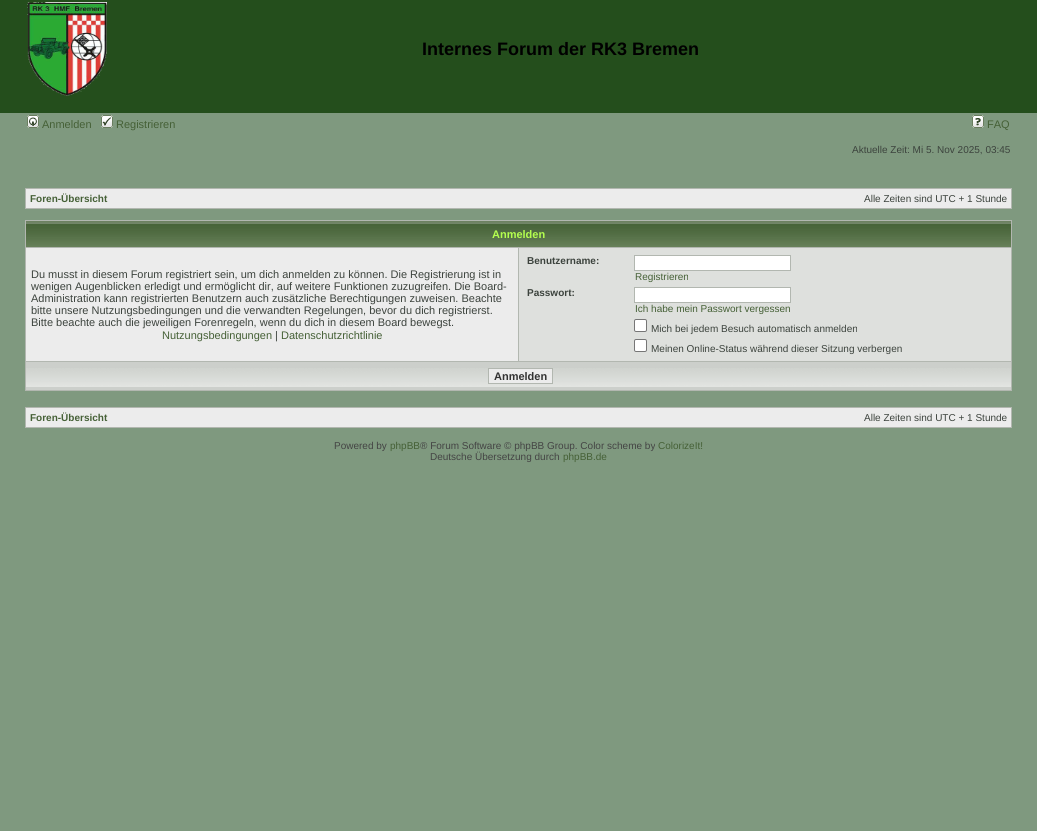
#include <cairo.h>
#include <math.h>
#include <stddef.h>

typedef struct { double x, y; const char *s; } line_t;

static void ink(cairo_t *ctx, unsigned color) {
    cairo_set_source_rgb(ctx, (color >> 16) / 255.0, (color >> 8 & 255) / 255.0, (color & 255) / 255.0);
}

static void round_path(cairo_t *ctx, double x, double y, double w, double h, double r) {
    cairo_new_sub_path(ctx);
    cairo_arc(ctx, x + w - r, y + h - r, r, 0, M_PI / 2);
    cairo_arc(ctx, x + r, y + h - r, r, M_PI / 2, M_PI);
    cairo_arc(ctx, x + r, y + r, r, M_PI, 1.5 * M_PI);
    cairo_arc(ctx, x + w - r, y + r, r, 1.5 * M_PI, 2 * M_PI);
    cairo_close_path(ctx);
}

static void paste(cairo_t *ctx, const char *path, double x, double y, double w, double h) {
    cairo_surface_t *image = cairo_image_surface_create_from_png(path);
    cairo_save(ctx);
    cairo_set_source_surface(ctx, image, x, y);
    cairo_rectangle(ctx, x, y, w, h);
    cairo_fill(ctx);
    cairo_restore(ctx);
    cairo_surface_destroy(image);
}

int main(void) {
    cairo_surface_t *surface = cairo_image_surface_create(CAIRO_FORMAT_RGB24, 1037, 831);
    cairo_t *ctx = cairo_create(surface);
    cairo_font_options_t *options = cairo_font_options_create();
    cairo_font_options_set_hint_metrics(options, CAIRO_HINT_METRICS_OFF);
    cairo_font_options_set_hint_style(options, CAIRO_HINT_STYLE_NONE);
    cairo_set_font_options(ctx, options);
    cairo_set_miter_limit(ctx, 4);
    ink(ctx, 0x7F997F);
    cairo_paint(ctx);
    ink(ctx, 0x244E1C);
    cairo_rectangle(ctx, 0, 0, 1037, 113);
    cairo_fill(ctx);
    paste(ctx, "media/1.png", 27, 2, 80, 94);
    cairo_select_font_face(ctx, "Liberation Sans", CAIRO_FONT_SLANT_NORMAL, CAIRO_FONT_WEIGHT_BOLD);
    cairo_set_font_size(ctx, 18);
    ink(ctx, 0x000000);
    cairo_move_to(ctx, 422, 55);
    cairo_show_text(ctx, "Internes Forum der RK3 Bremen");
    paste(ctx, "media/2.png", 27, 115, 12, 13);
    cairo_select_font_face(ctx, "Liberation Sans", CAIRO_FONT_SLANT_NORMAL, CAIRO_FONT_WEIGHT_NORMAL);
    cairo_set_font_size(ctx, 11);
    ink(ctx, 0x456036);
    cairo_move_to(ctx, 42, 128);
    cairo_show_text(ctx, "Anmelden");
    paste(ctx, "media/3.png", 101, 115, 12, 13);
    cairo_move_to(ctx, 116, 128);
    cairo_show_text(ctx, "Registrieren");
    paste(ctx, "media/4.png", 972, 115, 12, 13);
    cairo_move_to(ctx, 987, 128);
    cairo_show_text(ctx, "FAQ");
    cairo_set_font_size(ctx, 10);
    ink(ctx, 0x3C433D);
    cairo_move_to(ctx, 852, 153);
    cairo_show_text(ctx, "Aktuelle Zeit: Mi 5. Nov 2025, 03:45");
    ink(ctx, 0xB2B7B0);
    cairo_rectangle(ctx, 25, 188, 987, 21);
    cairo_fill(ctx);
    ink(ctx, 0xECECEC);
    cairo_rectangle(ctx, 26, 189, 985, 19);
    cairo_fill(ctx);
    cairo_select_font_face(ctx, "Liberation Sans", CAIRO_FONT_SLANT_NORMAL, CAIRO_FONT_WEIGHT_BOLD);
    ink(ctx, 0x456036);
    cairo_move_to(ctx, 30, 202);
    cairo_show_text(ctx, "Foren-Übersicht");
    cairo_select_font_face(ctx, "Liberation Sans", CAIRO_FONT_SLANT_NORMAL, CAIRO_FONT_WEIGHT_NORMAL);
    ink(ctx, 0x3C433D);
    cairo_move_to(ctx, 864, 202);
    cairo_show_text(ctx, "Alle Zeiten sind UTC + 1 Stunde");
    ink(ctx, 0xB2B7B0);
    cairo_rectangle(ctx, 25, 220, 987, 171);
    cairo_fill(ctx);
    paste(ctx, "media/5.png", 26, 221, 985, 26);
    cairo_select_font_face(ctx, "Liberation Sans", CAIRO_FONT_SLANT_NORMAL, CAIRO_FONT_WEIGHT_BOLD);
    cairo_set_font_size(ctx, 11);
    ink(ctx, 0xB4FF4F);
    cairo_move_to(ctx, 492, 238);
    cairo_show_text(ctx, "Anmelden");
    ink(ctx, 0xECECEC);
    cairo_rectangle(ctx, 26, 248, 492, 113);
    cairo_fill(ctx);
    cairo_select_font_face(ctx, "Liberation Sans", CAIRO_FONT_SLANT_NORMAL, CAIRO_FONT_WEIGHT_NORMAL);
    ink(ctx, 0x3C433D);
    {
        static const line_t items[] = {
            {31, 278, "Du musst in diesem Forum registriert sein, um dich anmelden zu können. Die Registrierung ist in"},
            {31, 290, "wenigen Augenblicken erledigt und ermöglicht dir, auf weitere Funktionen zuzugreifen. Die Board-"},
            {31, 302, "Administration kann registrierten Benutzern auch zusätzliche Berechtigungen zuweisen. Beachte"},
            {31, 314, "bitte unsere Nutzungsbedingungen und die verwandten Regelungen, bevor du dich registrierst."},
            {31, 326, "Bitte beachte auch die jeweiligen Forenregeln, wenn du dich in diesem Board bewegst."},
        };
        for (size_t i = 0; i < sizeof items / sizeof *items; i++) {
            cairo_move_to(ctx, items[i].x, items[i].y);
            cairo_show_text(ctx, items[i].s);
        }
    }
    ink(ctx, 0x456036);
    cairo_move_to(ctx, 162, 339);
    cairo_show_text(ctx, "Nutzungsbedingungen");
    ink(ctx, 0x3C433D);
    cairo_move_to(ctx, 275, 339);
    cairo_show_text(ctx, "|");
    ink(ctx, 0x456036);
    cairo_move_to(ctx, 281, 339);
    cairo_show_text(ctx, "Datenschutzrichtlinie");
    ink(ctx, 0xDEE0DD);
    cairo_rectangle(ctx, 519, 248, 492, 113);
    cairo_fill(ctx);
    cairo_select_font_face(ctx, "Liberation Sans", CAIRO_FONT_SLANT_NORMAL, CAIRO_FONT_WEIGHT_BOLD);
    cairo_set_font_size(ctx, 10);
    ink(ctx, 0x3C433D);
    cairo_move_to(ctx, 527, 264);
    cairo_show_text(ctx, "Benutzername:");
    ink(ctx, 0xFFFFFF);
    cairo_rectangle(ctx, 634.5, 255.5, 156, 15);
    cairo_fill_preserve(ctx);
    ink(ctx, 0xB2B7B0);
    cairo_set_line_width(ctx, 1);
    cairo_stroke(ctx);
    cairo_select_font_face(ctx, "Liberation Sans", CAIRO_FONT_SLANT_NORMAL, CAIRO_FONT_WEIGHT_NORMAL);
    ink(ctx, 0x456036);
    cairo_move_to(ctx, 635, 280);
    cairo_show_text(ctx, "Registrieren");
    cairo_select_font_face(ctx, "Liberation Sans", CAIRO_FONT_SLANT_NORMAL, CAIRO_FONT_WEIGHT_BOLD);
    ink(ctx, 0x3C433D);
    cairo_move_to(ctx, 527, 296);
    cairo_show_text(ctx, "Passwort:");
    ink(ctx, 0xFFFFFF);
    cairo_rectangle(ctx, 634.5, 287.5, 156, 15);
    cairo_fill_preserve(ctx);
    ink(ctx, 0xB2B7B0);
    cairo_stroke(ctx);
    cairo_select_font_face(ctx, "Liberation Sans", CAIRO_FONT_SLANT_NORMAL, CAIRO_FONT_WEIGHT_NORMAL);
    ink(ctx, 0x456036);
    cairo_move_to(ctx, 635, 312);
    cairo_show_text(ctx, "Ich habe mein Passwort vergessen");
    ink(ctx, 0xFFFFFF);
    round_path(ctx, 634.5, 319.5, 12, 12, 1.5);
    cairo_fill_preserve(ctx);
    ink(ctx, 0x767676);
    cairo_stroke(ctx);
    ink(ctx, 0x3C433D);
    cairo_move_to(ctx, 651, 332);
    cairo_show_text(ctx, "Mich bei jedem Besuch automatisch anmelden");
    ink(ctx, 0xFFFFFF);
    round_path(ctx, 634.5, 339.5, 12, 12, 1.5);
    cairo_fill_preserve(ctx);
    ink(ctx, 0x767676);
    cairo_stroke(ctx);
    ink(ctx, 0x3C433D);
    cairo_move_to(ctx, 651, 352);
    cairo_show_text(ctx, "Meinen Online-Status während dieser Sitzung verbergen");
    ink(ctx, 0xCCCFCB);
    cairo_rectangle(ctx, 26, 362, 985, 28);
    cairo_fill(ctx);
    paste(ctx, "media/6.png", 26, 368, 985, 19);
    ink(ctx, 0xECECEC);
    cairo_rectangle(ctx, 488.5, 368.5, 64, 15);
    cairo_fill_preserve(ctx);
    ink(ctx, 0xB2B7B0);
    cairo_stroke(ctx);
    cairo_select_font_face(ctx, "Liberation Sans", CAIRO_FONT_SLANT_NORMAL, CAIRO_FONT_WEIGHT_BOLD);
    cairo_set_font_size(ctx, 11);
    ink(ctx, 0x333333);
    cairo_move_to(ctx, 494, 380);
    cairo_show_text(ctx, "Anmelden");
    ink(ctx, 0xB2B7B0);
    cairo_rectangle(ctx, 25, 407, 987, 21);
    cairo_fill(ctx);
    ink(ctx, 0xECECEC);
    cairo_rectangle(ctx, 26, 408, 985, 19);
    cairo_fill(ctx);
    cairo_set_font_size(ctx, 10);
    ink(ctx, 0x456036);
    cairo_move_to(ctx, 30, 421);
    cairo_show_text(ctx, "Foren-Übersicht");
    cairo_select_font_face(ctx, "Liberation Sans", CAIRO_FONT_SLANT_NORMAL, CAIRO_FONT_WEIGHT_NORMAL);
    ink(ctx, 0x3C433D);
    cairo_move_to(ctx, 864, 421);
    cairo_show_text(ctx, "Alle Zeiten sind UTC + 1 Stunde");
    ink(ctx, 0x444444);
    cairo_move_to(ctx, 334, 449);
    cairo_show_text(ctx, "Powered by");
    ink(ctx, 0x456036);
    cairo_move_to(ctx, 390, 449);
    cairo_show_text(ctx, "phpBB");
    ink(ctx, 0x444444);
    cairo_move_to(ctx, 420, 449);
    cairo_show_text(ctx, "® Forum Software © phpBB Group. Color scheme by");
    ink(ctx, 0x456036);
    cairo_move_to(ctx, 658, 449);
    cairo_show_text(ctx, "ColorizeIt!");
    ink(ctx, 0x444444);
    cairo_move_to(ctx, 430, 460);
    cairo_show_text(ctx, "Deutsche Übersetzung durch");
    ink(ctx, 0x456036);
    cairo_move_to(ctx, 563, 460);
    cairo_show_text(ctx, "phpBB.de");
    cairo_surface_write_to_png(surface, "image.png");
    cairo_font_options_destroy(options);
    cairo_destroy(ctx);
    cairo_surface_destroy(surface);
    return 0;
}
